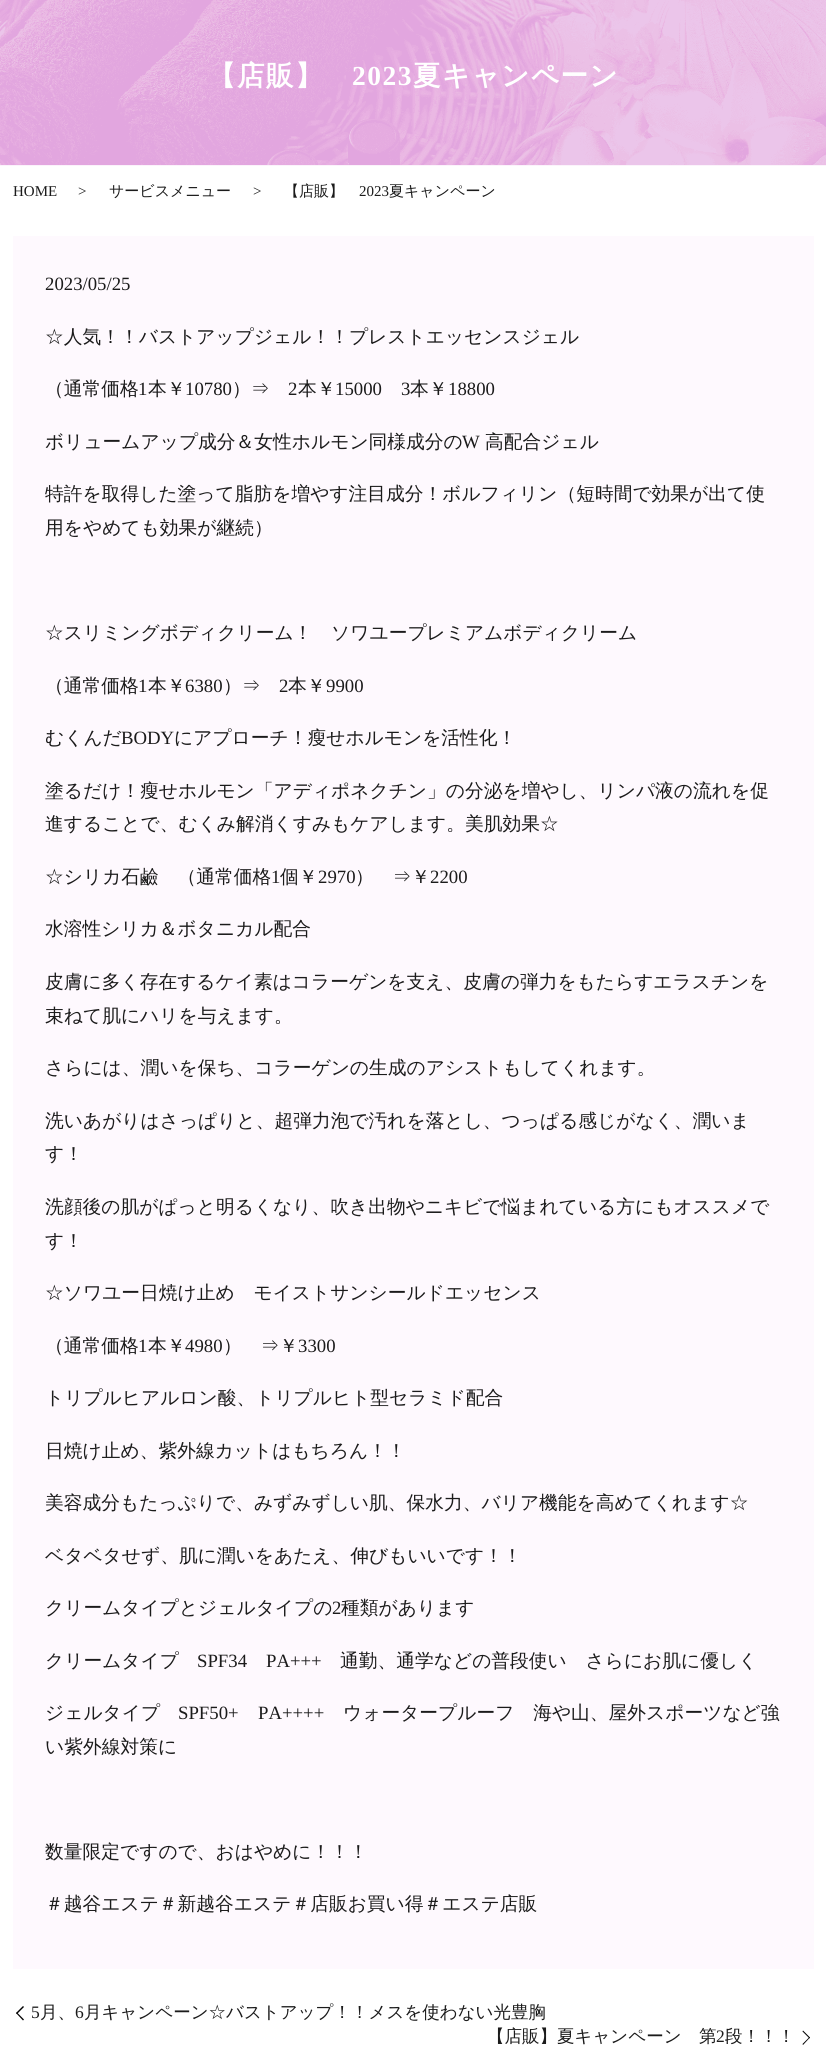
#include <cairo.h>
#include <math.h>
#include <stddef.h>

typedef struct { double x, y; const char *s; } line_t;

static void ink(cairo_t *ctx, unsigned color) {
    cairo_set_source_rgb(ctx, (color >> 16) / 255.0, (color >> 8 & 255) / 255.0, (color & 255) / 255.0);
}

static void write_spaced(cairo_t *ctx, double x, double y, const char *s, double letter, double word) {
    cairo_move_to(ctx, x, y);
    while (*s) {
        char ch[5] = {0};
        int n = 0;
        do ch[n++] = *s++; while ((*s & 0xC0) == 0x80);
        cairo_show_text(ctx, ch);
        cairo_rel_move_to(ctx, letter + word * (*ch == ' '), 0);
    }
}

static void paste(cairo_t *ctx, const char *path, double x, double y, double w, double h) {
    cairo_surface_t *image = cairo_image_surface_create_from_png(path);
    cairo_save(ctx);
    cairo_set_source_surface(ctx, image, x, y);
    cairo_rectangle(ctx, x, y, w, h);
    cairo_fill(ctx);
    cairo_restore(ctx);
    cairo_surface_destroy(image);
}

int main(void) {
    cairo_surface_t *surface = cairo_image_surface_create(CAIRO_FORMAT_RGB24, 826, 2062);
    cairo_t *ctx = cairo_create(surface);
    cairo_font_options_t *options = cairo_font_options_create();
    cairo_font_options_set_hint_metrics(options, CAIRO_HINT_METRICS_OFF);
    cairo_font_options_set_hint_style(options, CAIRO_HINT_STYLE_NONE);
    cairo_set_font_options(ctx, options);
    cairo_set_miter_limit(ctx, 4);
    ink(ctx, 0xFFFFFF);
    cairo_paint(ctx);
    paste(ctx, "media/1.png", 0, 0, 826, 166);
    cairo_select_font_face(ctx, "WenQuanYi Zen Hei", CAIRO_FONT_SLANT_NORMAL, CAIRO_FONT_WEIGHT_BOLD);
    cairo_set_font_size(ctx, 27.5);
    ink(ctx, 0xFFFFFF);
    write_spaced(ctx, 208, 85, "【店販】", 1.5, 0);
    cairo_select_font_face(ctx, "Liberation Serif", CAIRO_FONT_SLANT_NORMAL, CAIRO_FONT_WEIGHT_BOLD);
    write_spaced(ctx, 352, 85, "2023", 1.5, 0);
    cairo_select_font_face(ctx, "WenQuanYi Zen Hei", CAIRO_FONT_SLANT_NORMAL, CAIRO_FONT_WEIGHT_BOLD);
    write_spaced(ctx, 413, 85, "夏キャンペーン", 1.5, 0);
    cairo_select_font_face(ctx, "Liberation Serif", CAIRO_FONT_SLANT_NORMAL, CAIRO_FONT_WEIGHT_NORMAL);
    cairo_set_font_size(ctx, 15);
    ink(ctx, 0x1B1B1B);
    cairo_move_to(ctx, 13, 196);
    cairo_show_text(ctx, "HOME");
    cairo_move_to(ctx, 78, 196);
    cairo_show_text(ctx, ">");
    cairo_select_font_face(ctx, "WenQuanYi Zen Hei Medium", CAIRO_FONT_SLANT_NORMAL, CAIRO_FONT_WEIGHT_NORMAL);
    cairo_move_to(ctx, 109, 196);
    cairo_show_text(ctx, "サービスメニュー");
    cairo_select_font_face(ctx, "Liberation Serif", CAIRO_FONT_SLANT_NORMAL, CAIRO_FONT_WEIGHT_NORMAL);
    cairo_move_to(ctx, 253, 196);
    cairo_show_text(ctx, ">");
    cairo_select_font_face(ctx, "WenQuanYi Zen Hei Medium", CAIRO_FONT_SLANT_NORMAL, CAIRO_FONT_WEIGHT_NORMAL);
    cairo_move_to(ctx, 284, 196);
    cairo_show_text(ctx, "【店販】");
    cairo_select_font_face(ctx, "Liberation Serif", CAIRO_FONT_SLANT_NORMAL, CAIRO_FONT_WEIGHT_NORMAL);
    cairo_move_to(ctx, 359, 196);
    cairo_show_text(ctx, "2023");
    cairo_select_font_face(ctx, "WenQuanYi Zen Hei Medium", CAIRO_FONT_SLANT_NORMAL, CAIRO_FONT_WEIGHT_NORMAL);
    cairo_move_to(ctx, 389, 196);
    cairo_show_text(ctx, "夏キャンペーン");
    ink(ctx, 0xFEF9FE);
    cairo_rectangle(ctx, 13, 236, 801, 1733);
    cairo_fill(ctx);
    cairo_select_font_face(ctx, "Liberation Serif", CAIRO_FONT_SLANT_NORMAL, CAIRO_FONT_WEIGHT_NORMAL);
    cairo_set_font_size(ctx, 18.75);
    ink(ctx, 0x1B1B1B);
    cairo_move_to(ctx, 45, 290);
    cairo_show_text(ctx, "2023/05/25");
    cairo_select_font_face(ctx, "WenQuanYi Zen Hei Medium", CAIRO_FONT_SLANT_NORMAL, CAIRO_FONT_WEIGHT_NORMAL);
    cairo_move_to(ctx, 45, 343);
    cairo_show_text(ctx, "☆人気！！バストアップジェル！！プレストエッセンスジェル");
    cairo_move_to(ctx, 45, 395);
    cairo_show_text(ctx, "（通常価格");
    cairo_select_font_face(ctx, "Liberation Serif", CAIRO_FONT_SLANT_NORMAL, CAIRO_FONT_WEIGHT_NORMAL);
    cairo_move_to(ctx, 138, 395);
    cairo_show_text(ctx, "1");
    cairo_select_font_face(ctx, "WenQuanYi Zen Hei Medium", CAIRO_FONT_SLANT_NORMAL, CAIRO_FONT_WEIGHT_NORMAL);
    cairo_move_to(ctx, 148, 395);
    cairo_show_text(ctx, "本￥");
    cairo_select_font_face(ctx, "Liberation Serif", CAIRO_FONT_SLANT_NORMAL, CAIRO_FONT_WEIGHT_NORMAL);
    cairo_move_to(ctx, 185, 395);
    cairo_show_text(ctx, "10780");
    cairo_select_font_face(ctx, "WenQuanYi Zen Hei Medium", CAIRO_FONT_SLANT_NORMAL, CAIRO_FONT_WEIGHT_NORMAL);
    cairo_move_to(ctx, 232, 395);
    cairo_show_text(ctx, "）⇒");
    cairo_select_font_face(ctx, "Liberation Serif", CAIRO_FONT_SLANT_NORMAL, CAIRO_FONT_WEIGHT_NORMAL);
    cairo_move_to(ctx, 288, 395);
    cairo_show_text(ctx, "2");
    cairo_select_font_face(ctx, "WenQuanYi Zen Hei Medium", CAIRO_FONT_SLANT_NORMAL, CAIRO_FONT_WEIGHT_NORMAL);
    cairo_move_to(ctx, 298, 395);
    cairo_show_text(ctx, "本￥");
    cairo_select_font_face(ctx, "Liberation Serif", CAIRO_FONT_SLANT_NORMAL, CAIRO_FONT_WEIGHT_NORMAL);
    cairo_move_to(ctx, 335, 395);
    cairo_show_text(ctx, "15000");
    cairo_move_to(ctx, 401, 395);
    cairo_show_text(ctx, "3");
    cairo_select_font_face(ctx, "WenQuanYi Zen Hei Medium", CAIRO_FONT_SLANT_NORMAL, CAIRO_FONT_WEIGHT_NORMAL);
    cairo_move_to(ctx, 410, 395);
    cairo_show_text(ctx, "本￥");
    cairo_select_font_face(ctx, "Liberation Serif", CAIRO_FONT_SLANT_NORMAL, CAIRO_FONT_WEIGHT_NORMAL);
    cairo_move_to(ctx, 448, 395);
    cairo_show_text(ctx, "18800");
    cairo_select_font_face(ctx, "WenQuanYi Zen Hei Medium", CAIRO_FONT_SLANT_NORMAL, CAIRO_FONT_WEIGHT_NORMAL);
    cairo_move_to(ctx, 45, 448);
    cairo_show_text(ctx, "ボリュームアップ成分＆女性ホルモン同様成分の");
    cairo_select_font_face(ctx, "Liberation Serif", CAIRO_FONT_SLANT_NORMAL, CAIRO_FONT_WEIGHT_NORMAL);
    cairo_move_to(ctx, 462, 448);
    cairo_show_text(ctx, "W");
    cairo_select_font_face(ctx, "WenQuanYi Zen Hei Medium", CAIRO_FONT_SLANT_NORMAL, CAIRO_FONT_WEIGHT_NORMAL);
    {
        static const line_t items[] = {
            {485, 448, "高配合ジェル"},
            {45, 500, "特許を取得した塗って脂肪を増やす注目成分！ボルフィリン（短時間で効果が出て使"},
            {45, 534, "用をやめても効果が継続）"},
            {45, 639, "☆スリミングボディクリーム！　ソワユープレミアムボディクリーム"},
            {45, 692, "（通常価格"},
        };
        for (size_t i = 0; i < sizeof items / sizeof *items; i++) {
            cairo_move_to(ctx, items[i].x, items[i].y);
            cairo_show_text(ctx, items[i].s);
        }
    }
    cairo_select_font_face(ctx, "Liberation Serif", CAIRO_FONT_SLANT_NORMAL, CAIRO_FONT_WEIGHT_NORMAL);
    cairo_move_to(ctx, 138, 692);
    cairo_show_text(ctx, "1");
    cairo_select_font_face(ctx, "WenQuanYi Zen Hei Medium", CAIRO_FONT_SLANT_NORMAL, CAIRO_FONT_WEIGHT_NORMAL);
    cairo_move_to(ctx, 148, 692);
    cairo_show_text(ctx, "本￥");
    cairo_select_font_face(ctx, "Liberation Serif", CAIRO_FONT_SLANT_NORMAL, CAIRO_FONT_WEIGHT_NORMAL);
    cairo_move_to(ctx, 185, 692);
    cairo_show_text(ctx, "6380");
    cairo_select_font_face(ctx, "WenQuanYi Zen Hei Medium", CAIRO_FONT_SLANT_NORMAL, CAIRO_FONT_WEIGHT_NORMAL);
    cairo_move_to(ctx, 223, 692);
    cairo_show_text(ctx, "）⇒");
    cairo_select_font_face(ctx, "Liberation Serif", CAIRO_FONT_SLANT_NORMAL, CAIRO_FONT_WEIGHT_NORMAL);
    cairo_move_to(ctx, 279, 692);
    cairo_show_text(ctx, "2");
    cairo_select_font_face(ctx, "WenQuanYi Zen Hei Medium", CAIRO_FONT_SLANT_NORMAL, CAIRO_FONT_WEIGHT_NORMAL);
    cairo_move_to(ctx, 288, 692);
    cairo_show_text(ctx, "本￥");
    cairo_select_font_face(ctx, "Liberation Serif", CAIRO_FONT_SLANT_NORMAL, CAIRO_FONT_WEIGHT_NORMAL);
    cairo_move_to(ctx, 326, 692);
    cairo_show_text(ctx, "9900");
    cairo_select_font_face(ctx, "WenQuanYi Zen Hei Medium", CAIRO_FONT_SLANT_NORMAL, CAIRO_FONT_WEIGHT_NORMAL);
    cairo_move_to(ctx, 45, 744);
    cairo_show_text(ctx, "むくんだ");
    cairo_select_font_face(ctx, "Liberation Serif", CAIRO_FONT_SLANT_NORMAL, CAIRO_FONT_WEIGHT_NORMAL);
    cairo_move_to(ctx, 121, 744);
    cairo_show_text(ctx, "BODY");
    cairo_select_font_face(ctx, "WenQuanYi Zen Hei Medium", CAIRO_FONT_SLANT_NORMAL, CAIRO_FONT_WEIGHT_NORMAL);
    {
        static const line_t items[] = {
            {174, 744, "にアプローチ！瘦せホルモンを活性化！"},
            {45, 797, "塗るだけ！瘦せホルモン「アディポネクチン」の分泌を増やし、リンパ液の流れを促"},
            {45, 830, "進することで、むくみ解消くすみもケアします。美肌効果☆"},
            {45, 883, "☆シリカ石鹼　（通常価格"},
        };
        for (size_t i = 0; i < sizeof items / sizeof *items; i++) {
            cairo_move_to(ctx, items[i].x, items[i].y);
            cairo_show_text(ctx, items[i].s);
        }
    }
    cairo_select_font_face(ctx, "Liberation Serif", CAIRO_FONT_SLANT_NORMAL, CAIRO_FONT_WEIGHT_NORMAL);
    cairo_move_to(ctx, 271, 883);
    cairo_show_text(ctx, "1");
    cairo_select_font_face(ctx, "WenQuanYi Zen Hei Medium", CAIRO_FONT_SLANT_NORMAL, CAIRO_FONT_WEIGHT_NORMAL);
    cairo_move_to(ctx, 280, 883);
    cairo_show_text(ctx, "個￥");
    cairo_select_font_face(ctx, "Liberation Serif", CAIRO_FONT_SLANT_NORMAL, CAIRO_FONT_WEIGHT_NORMAL);
    cairo_move_to(ctx, 318, 883);
    cairo_show_text(ctx, "2970");
    cairo_select_font_face(ctx, "WenQuanYi Zen Hei Medium", CAIRO_FONT_SLANT_NORMAL, CAIRO_FONT_WEIGHT_NORMAL);
    cairo_move_to(ctx, 355, 883);
    cairo_show_text(ctx, "）　⇒￥");
    cairo_select_font_face(ctx, "Liberation Serif", CAIRO_FONT_SLANT_NORMAL, CAIRO_FONT_WEIGHT_NORMAL);
    cairo_move_to(ctx, 430, 883);
    cairo_show_text(ctx, "2200");
    cairo_select_font_face(ctx, "WenQuanYi Zen Hei Medium", CAIRO_FONT_SLANT_NORMAL, CAIRO_FONT_WEIGHT_NORMAL);
    {
        static const line_t items[] = {
            {45, 935, "水溶性シリカ＆ボタニカル配合"},
            {45, 988, "皮膚に多く存在するケイ素はコラーゲンを支え、皮膚の弾力をもたらすエラスチンを"},
            {45, 1022, "束ねて肌にハリを与えます。"},
            {45, 1074, "さらには、潤いを保ち、コラーゲンの生成のアシストもしてくれます。"},
            {45, 1127, "洗いあがりはさっぱりと、超弾力泡で汚れを落とし、つっぱる感じがなく、潤いま"},
            {45, 1160, "す！"},
            {45, 1213, "洗顔後の肌がぱっと明るくなり、吹き出物やニキビで悩まれている方にもオススメで"},
            {45, 1247, "す！"},
            {45, 1299, "☆ソワユー日焼け止め　モイストサンシールドエッセンス"},
            {45, 1352, "（通常価格"},
        };
        for (size_t i = 0; i < sizeof items / sizeof *items; i++) {
            cairo_move_to(ctx, items[i].x, items[i].y);
            cairo_show_text(ctx, items[i].s);
        }
    }
    cairo_select_font_face(ctx, "Liberation Serif", CAIRO_FONT_SLANT_NORMAL, CAIRO_FONT_WEIGHT_NORMAL);
    cairo_move_to(ctx, 138, 1352);
    cairo_show_text(ctx, "1");
    cairo_select_font_face(ctx, "WenQuanYi Zen Hei Medium", CAIRO_FONT_SLANT_NORMAL, CAIRO_FONT_WEIGHT_NORMAL);
    cairo_move_to(ctx, 148, 1352);
    cairo_show_text(ctx, "本￥");
    cairo_select_font_face(ctx, "Liberation Serif", CAIRO_FONT_SLANT_NORMAL, CAIRO_FONT_WEIGHT_NORMAL);
    cairo_move_to(ctx, 185, 1352);
    cairo_show_text(ctx, "4980");
    cairo_select_font_face(ctx, "WenQuanYi Zen Hei Medium", CAIRO_FONT_SLANT_NORMAL, CAIRO_FONT_WEIGHT_NORMAL);
    cairo_move_to(ctx, 223, 1352);
    cairo_show_text(ctx, "）　⇒￥");
    cairo_select_font_face(ctx, "Liberation Serif", CAIRO_FONT_SLANT_NORMAL, CAIRO_FONT_WEIGHT_NORMAL);
    cairo_move_to(ctx, 298, 1352);
    cairo_show_text(ctx, "3300");
    cairo_select_font_face(ctx, "WenQuanYi Zen Hei Medium", CAIRO_FONT_SLANT_NORMAL, CAIRO_FONT_WEIGHT_NORMAL);
    {
        static const line_t items[] = {
            {45, 1404, "トリプルヒアルロン酸、トリプルヒト型セラミド配合"},
            {45, 1457, "日焼け止め、紫外線カットはもちろん！！"},
            {45, 1509, "美容成分もたっぷりで、みずみずしい肌、保水力、バリア機能を高めてくれます☆"},
            {45, 1562, "ベタベタせず、肌に潤いをあたえ、伸びもいいです！！"},
            {45, 1614, "クリームタイプとジェルタイプの"},
        };
        for (size_t i = 0; i < sizeof items / sizeof *items; i++) {
            cairo_move_to(ctx, items[i].x, items[i].y);
            cairo_show_text(ctx, items[i].s);
        }
    }
    cairo_select_font_face(ctx, "Liberation Serif", CAIRO_FONT_SLANT_NORMAL, CAIRO_FONT_WEIGHT_NORMAL);
    cairo_move_to(ctx, 332, 1614);
    cairo_show_text(ctx, "2");
    cairo_select_font_face(ctx, "WenQuanYi Zen Hei Medium", CAIRO_FONT_SLANT_NORMAL, CAIRO_FONT_WEIGHT_NORMAL);
    cairo_move_to(ctx, 341, 1614);
    cairo_show_text(ctx, "種類があります");
    cairo_move_to(ctx, 45, 1667);
    cairo_show_text(ctx, "クリームタイプ");
    cairo_select_font_face(ctx, "Liberation Serif", CAIRO_FONT_SLANT_NORMAL, CAIRO_FONT_WEIGHT_NORMAL);
    cairo_move_to(ctx, 197, 1667);
    cairo_show_text(ctx, "SPF34");
    cairo_move_to(ctx, 266, 1667);
    cairo_show_text(ctx, "PA+++");
    cairo_select_font_face(ctx, "WenQuanYi Zen Hei Medium", CAIRO_FONT_SLANT_NORMAL, CAIRO_FONT_WEIGHT_NORMAL);
    cairo_move_to(ctx, 340, 1667);
    cairo_show_text(ctx, "通勤、通学などの普段使い　さらにお肌に優しく");
    cairo_move_to(ctx, 45, 1719);
    cairo_show_text(ctx, "ジェルタイプ");
    cairo_select_font_face(ctx, "Liberation Serif", CAIRO_FONT_SLANT_NORMAL, CAIRO_FONT_WEIGHT_NORMAL);
    cairo_move_to(ctx, 178, 1719);
    cairo_show_text(ctx, "SPF50+");
    cairo_move_to(ctx, 258, 1719);
    cairo_show_text(ctx, "PA++++");
    cairo_select_font_face(ctx, "WenQuanYi Zen Hei Medium", CAIRO_FONT_SLANT_NORMAL, CAIRO_FONT_WEIGHT_NORMAL);
    {
        static const line_t items[] = {
            {343, 1719, "ウォータープルーフ　海や山、屋外スポーツなど強"},
            {45, 1753, "い紫外線対策に"},
            {45, 1858, "数量限定ですので、おはやめに！！！"},
            {45, 1910, "＃越谷エステ＃新越谷エステ＃店販お買い得＃エステ店販"},
        };
        for (size_t i = 0; i < sizeof items / sizeof *items; i++) {
            cairo_move_to(ctx, items[i].x, items[i].y);
            cairo_show_text(ctx, items[i].s);
        }
    }
    ink(ctx, 0x000000);
    cairo_new_path(ctx);
    cairo_move_to(ctx, 16, 2013);
    cairo_line_to(ctx, 23, 2006);
    cairo_line_to(ctx, 24, 2007);
    cairo_line_to(ctx, 17, 2014);
    cairo_close_path(ctx);
    cairo_fill(ctx);
    cairo_select_font_face(ctx, "Liberation Serif", CAIRO_FONT_SLANT_NORMAL, CAIRO_FONT_WEIGHT_NORMAL);
    cairo_set_font_size(ctx, 17.5);
    ink(ctx, 0x1B1B1B);
    cairo_move_to(ctx, 31, 2018);
    cairo_show_text(ctx, "5");
    cairo_select_font_face(ctx, "WenQuanYi Zen Hei Medium", CAIRO_FONT_SLANT_NORMAL, CAIRO_FONT_WEIGHT_NORMAL);
    cairo_move_to(ctx, 40, 2018);
    cairo_show_text(ctx, "月、");
    cairo_select_font_face(ctx, "Liberation Serif", CAIRO_FONT_SLANT_NORMAL, CAIRO_FONT_WEIGHT_NORMAL);
    cairo_move_to(ctx, 75, 2018);
    cairo_show_text(ctx, "6");
    cairo_select_font_face(ctx, "WenQuanYi Zen Hei Medium", CAIRO_FONT_SLANT_NORMAL, CAIRO_FONT_WEIGHT_NORMAL);
    cairo_move_to(ctx, 84, 2018);
    cairo_show_text(ctx, "月キャンペーン☆バストアップ！！メスを使わない光豊胸");
    ink(ctx, 0x000000);
    cairo_new_path(ctx);
    cairo_move_to(ctx, 23, 2020.5);
    cairo_line_to(ctx, 16, 2013);
    cairo_line_to(ctx, 17, 2012.5);
    cairo_line_to(ctx, 24, 2019.5);
    cairo_close_path(ctx);
    cairo_fill(ctx);
    ink(ctx, 0x1B1B1B);
    cairo_move_to(ctx, 487, 2042);
    cairo_show_text(ctx, "【店販】夏キャンペーン　第");
    cairo_select_font_face(ctx, "Liberation Serif", CAIRO_FONT_SLANT_NORMAL, CAIRO_FONT_WEIGHT_NORMAL);
    cairo_move_to(ctx, 716, 2042);
    cairo_show_text(ctx, "2");
    cairo_select_font_face(ctx, "WenQuanYi Zen Hei Medium", CAIRO_FONT_SLANT_NORMAL, CAIRO_FONT_WEIGHT_NORMAL);
    cairo_move_to(ctx, 725, 2042);
    cairo_show_text(ctx, "段！！！");
    ink(ctx, 0x000000);
    cairo_new_path(ctx);
    cairo_move_to(ctx, 803, 2030.5);
    cairo_line_to(ctx, 810, 2037.5);
    cairo_line_to(ctx, 809.5, 2038.5);
    cairo_line_to(ctx, 802.5, 2031.5);
    cairo_close_path(ctx);
    cairo_fill(ctx);
    cairo_new_path(ctx);
    cairo_move_to(ctx, 810, 2037.5);
    cairo_line_to(ctx, 803, 2045);
    cairo_line_to(ctx, 802.5, 2044);
    cairo_line_to(ctx, 809.5, 2037);
    cairo_close_path(ctx);
    cairo_fill(ctx);
    cairo_surface_write_to_png(surface, "image.png");
    cairo_font_options_destroy(options);
    cairo_destroy(ctx);
    cairo_surface_destroy(surface);
    return 0;
}
